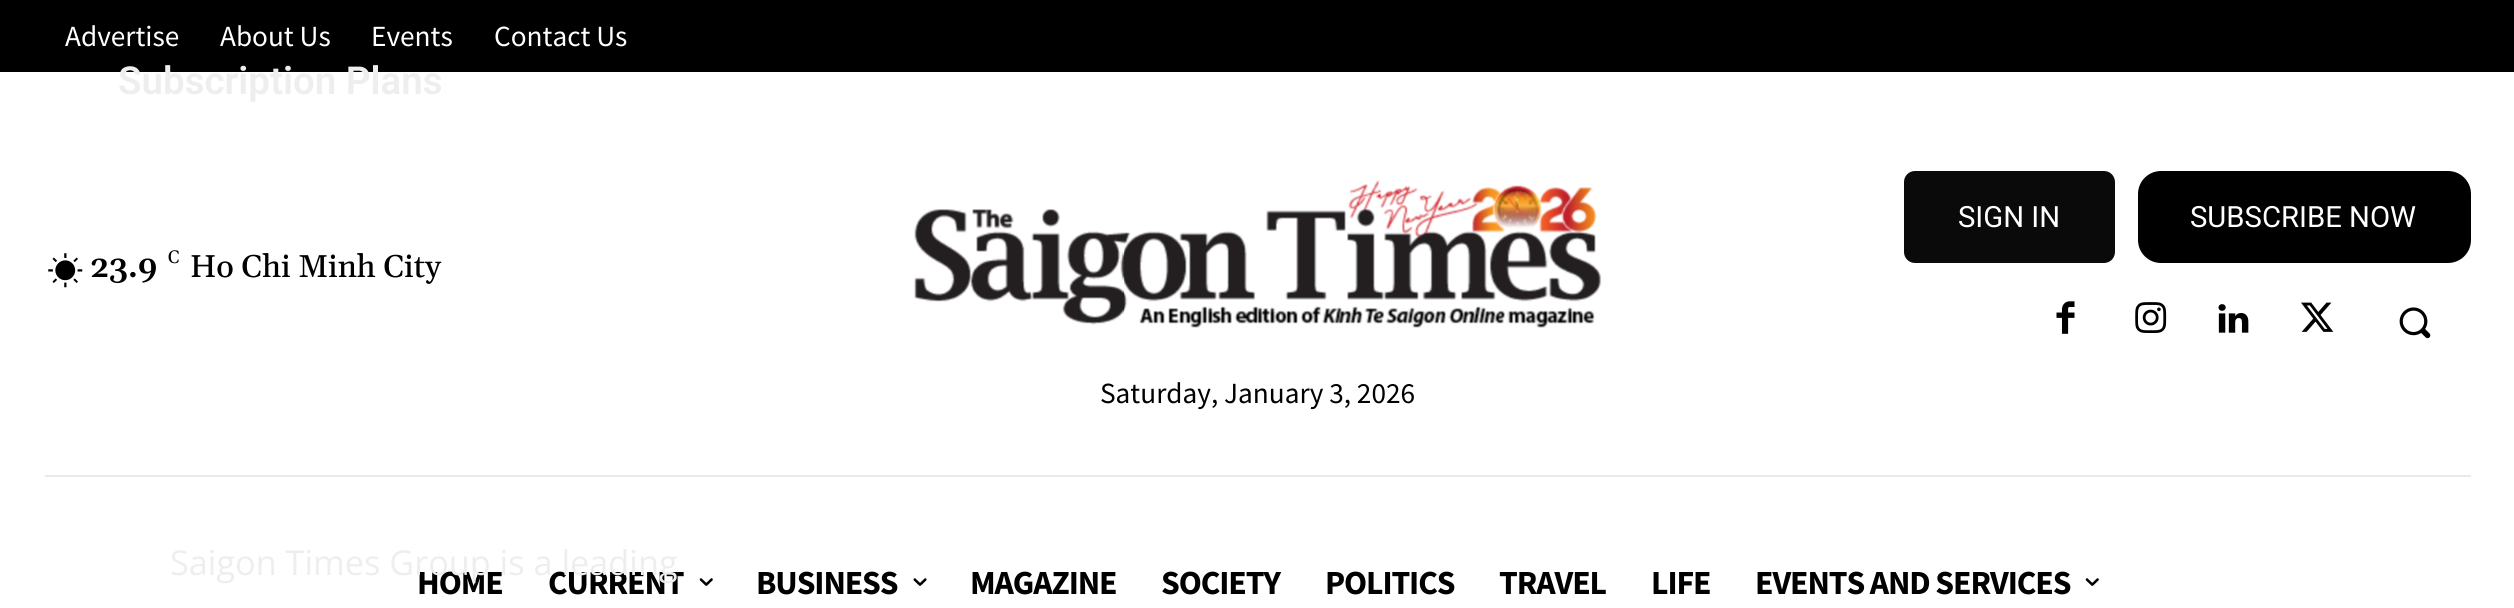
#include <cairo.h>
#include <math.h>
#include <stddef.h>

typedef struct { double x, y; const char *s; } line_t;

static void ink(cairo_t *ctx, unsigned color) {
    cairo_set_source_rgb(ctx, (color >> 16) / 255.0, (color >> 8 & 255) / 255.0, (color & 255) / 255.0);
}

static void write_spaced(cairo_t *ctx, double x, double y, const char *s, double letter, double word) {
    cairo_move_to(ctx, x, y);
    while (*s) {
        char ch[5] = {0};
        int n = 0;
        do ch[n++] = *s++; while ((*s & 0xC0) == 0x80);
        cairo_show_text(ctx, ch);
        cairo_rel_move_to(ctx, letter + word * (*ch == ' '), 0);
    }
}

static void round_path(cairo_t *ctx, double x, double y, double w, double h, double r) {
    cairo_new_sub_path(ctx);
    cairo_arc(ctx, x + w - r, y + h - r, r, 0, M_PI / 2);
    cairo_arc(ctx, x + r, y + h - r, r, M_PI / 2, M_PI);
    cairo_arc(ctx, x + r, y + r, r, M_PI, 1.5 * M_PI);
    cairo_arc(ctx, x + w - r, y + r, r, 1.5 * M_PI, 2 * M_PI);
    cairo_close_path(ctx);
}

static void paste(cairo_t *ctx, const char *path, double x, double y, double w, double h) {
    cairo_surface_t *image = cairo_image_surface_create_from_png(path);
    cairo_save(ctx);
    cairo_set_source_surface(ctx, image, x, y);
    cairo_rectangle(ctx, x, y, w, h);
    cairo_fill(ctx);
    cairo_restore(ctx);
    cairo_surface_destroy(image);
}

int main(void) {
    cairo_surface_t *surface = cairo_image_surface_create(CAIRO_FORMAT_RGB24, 2514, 608);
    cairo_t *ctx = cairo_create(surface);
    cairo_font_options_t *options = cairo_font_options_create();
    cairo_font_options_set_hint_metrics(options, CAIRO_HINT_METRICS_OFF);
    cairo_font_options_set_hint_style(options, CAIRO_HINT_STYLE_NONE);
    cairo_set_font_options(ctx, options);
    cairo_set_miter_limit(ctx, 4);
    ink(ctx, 0xFFFFFF);
    cairo_paint(ctx);
    ink(ctx, 0x000000);
    cairo_rectangle(ctx, 0, 0, 2514, 72);
    cairo_fill(ctx);
    cairo_select_font_face(ctx, "Source Sans Pro", CAIRO_FONT_SLANT_NORMAL, CAIRO_FONT_WEIGHT_NORMAL);
    cairo_set_font_size(ctx, 29.25);
    ink(ctx, 0xFFFFFF);
    {
        static const line_t items[] = {
            {65, 46, "Advertise"},
            {220, 46, "About Us"},
            {371, 46, "Events"},
            {494, 46, "Contact Us"},
        };
        for (size_t i = 0; i < sizeof items / sizeof *items; i++) {
            cairo_move_to(ctx, items[i].x, items[i].y);
            cairo_show_text(ctx, items[i].s);
        }
    }
    ink(ctx, 0x0A0A0A);
    round_path(ctx, 1904, 171, 211, 92, 11);
    cairo_fill(ctx);
    cairo_select_font_face(ctx, "Roboto", CAIRO_FONT_SLANT_NORMAL, CAIRO_FONT_WEIGHT_NORMAL);
    ink(ctx, 0xFFFFFF);
    cairo_move_to(ctx, 1958, 227);
    cairo_show_text(ctx, "SIGN IN");
    ink(ctx, 0x000000);
    round_path(ctx, 2138, 171, 333, 92, 23);
    cairo_fill(ctx);
    ink(ctx, 0xFFFFFF);
    cairo_move_to(ctx, 2190, 227);
    cairo_show_text(ctx, "SUBSCRIBE NOW");
    paste(ctx, "media/1.png", 2056, 301, 19, 33);
    paste(ctx, "media/2.png", 2135, 302, 32, 31);
    paste(ctx, "media/3.png", 2218, 304, 31, 29);
    paste(ctx, "media/4.png", 2301, 302, 33, 30);
    paste(ctx, "media/5.png", 2399, 307, 32, 32);
    paste(ctx, "media/6.png", 48, 253, 35, 35);
    cairo_select_font_face(ctx, "Gelasio SemiBold", CAIRO_FONT_SLANT_NORMAL, CAIRO_FONT_WEIGHT_NORMAL);
    cairo_set_font_size(ctx, 31.5);
    ink(ctx, 0x000000);
    cairo_move_to(ctx, 90, 277);
    cairo_show_text(ctx, "23.9");
    cairo_select_font_face(ctx, "Gelasio", CAIRO_FONT_SLANT_NORMAL, CAIRO_FONT_WEIGHT_NORMAL);
    cairo_set_font_size(ctx, 18);
    cairo_move_to(ctx, 168, 263);
    cairo_show_text(ctx, "C");
    cairo_select_font_face(ctx, "Gelasio Medium", CAIRO_FONT_SLANT_NORMAL, CAIRO_FONT_WEIGHT_NORMAL);
    cairo_set_font_size(ctx, 31.5);
    cairo_move_to(ctx, 190, 277);
    cairo_show_text(ctx, "Ho Chi Minh City");
    paste(ctx, "media/7.png", 914, 180, 688, 148);
    cairo_select_font_face(ctx, "Source Sans Pro", CAIRO_FONT_SLANT_NORMAL, CAIRO_FONT_WEIGHT_NORMAL);
    cairo_set_font_size(ctx, 29.25);
    cairo_move_to(ctx, 1100, 403);
    cairo_show_text(ctx, "Saturday, January 3, 2026");
    ink(ctx, 0xEAEAEA);
    cairo_rectangle(ctx, 45, 475, 2426, 2);
    cairo_fill(ctx);
    cairo_select_font_face(ctx, "Source Sans Pro", CAIRO_FONT_SLANT_NORMAL, CAIRO_FONT_WEIGHT_BOLD);
    cairo_set_font_size(ctx, 33.75);
    ink(ctx, 0x000000);
    write_spaced(ctx, 417, 594, "HOME", -1.1, 0);
    write_spaced(ctx, 548, 594, "CURRENT", -1.1, 0);
    paste(ctx, "media/8.png", 699, 578, 14, 8);
    write_spaced(ctx, 756, 594, "BUSINESS", -1.1, 0);
    paste(ctx, "media/9.png", 913, 578, 14, 8);
    {
        static const line_t items[] = {
            {970, 594, "MAGAZINE"},
            {1161, 594, "SOCIETY"},
            {1325, 594, "POLITICS"},
            {1499, 594, "TRAVEL"},
            {1651, 594, "LIFE"},
            {1755, 594, "EVENTS AND SERVICES"},
        };
        for (size_t i = 0; i < sizeof items / sizeof *items; i++) {
            write_spaced(ctx, items[i].x, items[i].y, items[i].s, -1.1, 0);
        }
    }
    paste(ctx, "media/8.png", 2085, 578, 14, 8);
    cairo_select_font_face(ctx, "Roboto SemiBold", CAIRO_FONT_SLANT_NORMAL, CAIRO_FONT_WEIGHT_NORMAL);
    cairo_set_font_size(ctx, 38.5);
    ink(ctx, 0xEEEEEE);
    cairo_move_to(ctx, 118, 94);
    cairo_show_text(ctx, "Subscription Plans");
    cairo_select_font_face(ctx, "Open Sans", CAIRO_FONT_SLANT_NORMAL, CAIRO_FONT_WEIGHT_NORMAL);
    cairo_set_font_size(ctx, 34.25);
    cairo_move_to(ctx, 170, 575);
    cairo_show_text(ctx, "Saigon Times Group is a leading");
    cairo_surface_write_to_png(surface, "image.png");
    cairo_font_options_destroy(options);
    cairo_destroy(ctx);
    cairo_surface_destroy(surface);
    return 0;
}
